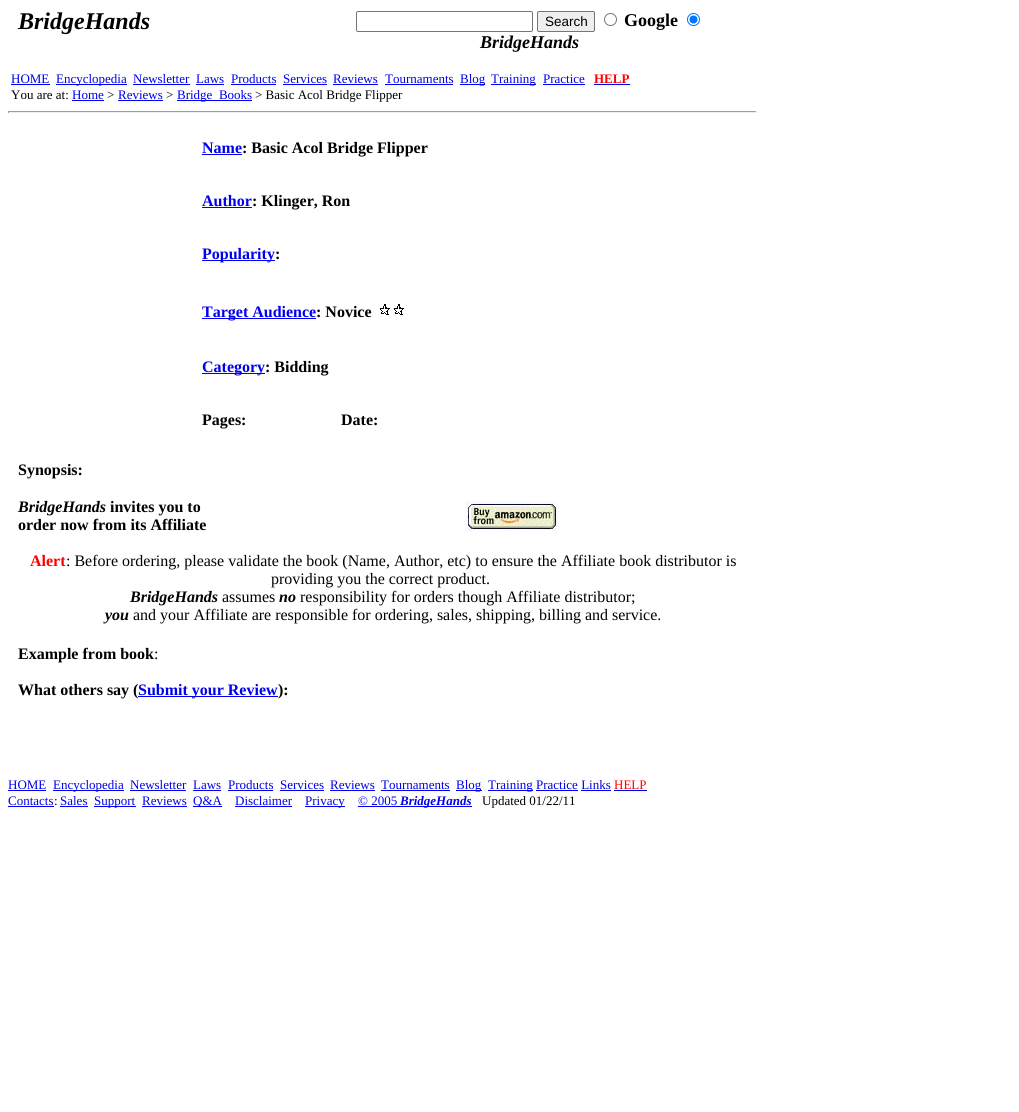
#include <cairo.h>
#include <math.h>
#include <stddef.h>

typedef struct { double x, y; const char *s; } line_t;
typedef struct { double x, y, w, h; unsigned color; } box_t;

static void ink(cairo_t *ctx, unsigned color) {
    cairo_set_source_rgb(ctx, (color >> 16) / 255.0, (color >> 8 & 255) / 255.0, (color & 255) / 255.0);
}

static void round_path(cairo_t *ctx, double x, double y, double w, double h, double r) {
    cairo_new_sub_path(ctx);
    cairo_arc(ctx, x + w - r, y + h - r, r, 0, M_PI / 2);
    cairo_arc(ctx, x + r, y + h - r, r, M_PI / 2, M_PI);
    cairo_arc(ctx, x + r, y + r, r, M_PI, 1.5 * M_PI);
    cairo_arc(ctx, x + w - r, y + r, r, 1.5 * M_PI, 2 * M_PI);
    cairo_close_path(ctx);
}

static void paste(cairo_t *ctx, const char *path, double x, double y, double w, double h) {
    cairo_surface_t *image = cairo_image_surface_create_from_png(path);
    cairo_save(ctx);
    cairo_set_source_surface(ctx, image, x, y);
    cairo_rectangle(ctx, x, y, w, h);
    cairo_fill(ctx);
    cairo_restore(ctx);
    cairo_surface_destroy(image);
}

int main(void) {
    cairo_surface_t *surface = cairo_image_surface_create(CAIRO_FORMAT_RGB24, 1019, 1112);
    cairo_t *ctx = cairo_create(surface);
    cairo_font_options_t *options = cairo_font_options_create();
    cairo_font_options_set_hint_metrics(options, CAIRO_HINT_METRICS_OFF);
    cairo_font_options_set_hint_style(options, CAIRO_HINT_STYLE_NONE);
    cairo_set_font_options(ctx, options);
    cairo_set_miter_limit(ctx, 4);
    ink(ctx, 0xFFFFFF);
    cairo_paint(ctx);
    cairo_select_font_face(ctx, "Liberation Serif", CAIRO_FONT_SLANT_ITALIC, CAIRO_FONT_WEIGHT_BOLD);
    cairo_set_font_size(ctx, 24);
    ink(ctx, 0x000000);
    cairo_move_to(ctx, 18, 29);
    cairo_show_text(ctx, "BridgeHands");
    round_path(ctx, 356.5, 11.5, 176, 20, 1.5);
    ink(ctx, 0x767676);
    cairo_set_line_width(ctx, 1);
    cairo_stroke(ctx);
    ink(ctx, 0xEFEFEF);
    round_path(ctx, 537.5, 11.5, 57, 20, 1.5);
    cairo_fill_preserve(ctx);
    ink(ctx, 0x767676);
    cairo_stroke(ctx);
    cairo_select_font_face(ctx, "Liberation Sans", CAIRO_FONT_SLANT_NORMAL, CAIRO_FONT_WEIGHT_NORMAL);
    cairo_set_font_size(ctx, 13.5);
    ink(ctx, 0x000000);
    cairo_move_to(ctx, 545, 26);
    cairo_show_text(ctx, "Search");
    cairo_new_path(ctx);
    cairo_arc(ctx, 610.5, 19.5, 6, 0, 2 * M_PI);
    ink(ctx, 0x767676);
    cairo_stroke(ctx);
    cairo_select_font_face(ctx, "Liberation Serif", CAIRO_FONT_SLANT_NORMAL, CAIRO_FONT_WEIGHT_BOLD);
    cairo_set_font_size(ctx, 18);
    ink(ctx, 0x000000);
    cairo_move_to(ctx, 624, 26);
    cairo_show_text(ctx, "Google");
    cairo_new_path(ctx);
    cairo_arc(ctx, 693.5, 19.5, 6, 0, 2 * M_PI);
    ink(ctx, 0x0075FF);
    cairo_stroke(ctx);
    cairo_arc(ctx, 693.5, 19.5, 4, 0, 2 * M_PI);
    cairo_fill(ctx);
    cairo_select_font_face(ctx, "Liberation Serif", CAIRO_FONT_SLANT_ITALIC, CAIRO_FONT_WEIGHT_BOLD);
    ink(ctx, 0x000000);
    cairo_move_to(ctx, 480, 48);
    cairo_show_text(ctx, "BridgeHands");
    cairo_select_font_face(ctx, "Liberation Serif", CAIRO_FONT_SLANT_NORMAL, CAIRO_FONT_WEIGHT_NORMAL);
    cairo_set_font_size(ctx, 13);
    ink(ctx, 0x0000EE);
    cairo_move_to(ctx, 11, 83);
    cairo_show_text(ctx, "HOME");
    cairo_rectangle(ctx, 11, 84, 39, 1);
    cairo_fill(ctx);
    cairo_rectangle(ctx, 56, 84, 71, 1);
    cairo_fill(ctx);
    cairo_move_to(ctx, 56, 83);
    cairo_show_text(ctx, "Encyclopedia");
    cairo_move_to(ctx, 133, 83);
    cairo_show_text(ctx, "Newsletter");
    cairo_rectangle(ctx, 133, 84, 57, 1);
    cairo_fill(ctx);
    cairo_move_to(ctx, 196, 83);
    cairo_show_text(ctx, "Laws");
    cairo_rectangle(ctx, 196, 84, 28, 1);
    cairo_fill(ctx);
    cairo_move_to(ctx, 231, 83);
    cairo_show_text(ctx, "Products");
    cairo_rectangle(ctx, 231, 84, 45, 1);
    cairo_fill(ctx);
    cairo_move_to(ctx, 283, 83);
    cairo_show_text(ctx, "Services");
    cairo_rectangle(ctx, 283, 84, 44, 1);
    cairo_fill(ctx);
    cairo_move_to(ctx, 333, 83);
    cairo_show_text(ctx, "Reviews");
    cairo_rectangle(ctx, 333, 84, 45, 1);
    cairo_fill(ctx);
    cairo_move_to(ctx, 385, 83);
    cairo_show_text(ctx, "Tournaments");
    cairo_rectangle(ctx, 385, 84, 68, 1);
    cairo_fill(ctx);
    cairo_rectangle(ctx, 460, 84, 25, 1);
    cairo_fill(ctx);
    cairo_move_to(ctx, 460, 83);
    cairo_show_text(ctx, "Blog");
    cairo_rectangle(ctx, 491, 84, 45, 1);
    cairo_fill(ctx);
    cairo_move_to(ctx, 491, 83);
    cairo_show_text(ctx, "Training");
    cairo_move_to(ctx, 543, 83);
    cairo_show_text(ctx, "Practice");
    cairo_rectangle(ctx, 543, 84, 42, 1);
    cairo_fill(ctx);
    cairo_select_font_face(ctx, "Liberation Serif", CAIRO_FONT_SLANT_NORMAL, CAIRO_FONT_WEIGHT_BOLD);
    ink(ctx, 0xFF0000);
    cairo_move_to(ctx, 594, 83);
    cairo_show_text(ctx, "HELP");
    ink(ctx, 0x0000EE);
    cairo_rectangle(ctx, 594, 84, 36, 1);
    cairo_fill(ctx);
    cairo_select_font_face(ctx, "Liberation Serif", CAIRO_FONT_SLANT_NORMAL, CAIRO_FONT_WEIGHT_NORMAL);
    ink(ctx, 0x000000);
    cairo_move_to(ctx, 11, 99);
    cairo_show_text(ctx, "You are at:");
    ink(ctx, 0x0000EE);
    cairo_move_to(ctx, 72, 99);
    cairo_show_text(ctx, "Home");
    cairo_rectangle(ctx, 72, 100, 32, 1);
    cairo_fill(ctx);
    ink(ctx, 0x000000);
    cairo_move_to(ctx, 107, 99);
    cairo_show_text(ctx, ">");
    ink(ctx, 0x0000EE);
    cairo_move_to(ctx, 118, 99);
    cairo_show_text(ctx, "Reviews");
    cairo_rectangle(ctx, 118, 100, 45, 1);
    cairo_fill(ctx);
    ink(ctx, 0x000000);
    cairo_move_to(ctx, 166, 99);
    cairo_show_text(ctx, ">");
    ink(ctx, 0x0000EE);
    cairo_rectangle(ctx, 177, 100, 75, 1);
    cairo_fill(ctx);
    cairo_move_to(ctx, 177, 99);
    cairo_show_text(ctx, "Bridge_Books");
    ink(ctx, 0x000000);
    cairo_move_to(ctx, 255, 99);
    cairo_show_text(ctx, "> Basic Acol Bridge Flipper");
    {
        static const box_t items[] = {
            {8, 111, 749, 1, 0x9F9F9F},
            {756, 111, 1, 2, 0xEEEEEE},
            {8, 112, 749, 1, 0xEEEEEE},
            {8, 111, 1, 2, 0x9F9F9F},
        };
        for (size_t i = 0; i < sizeof items / sizeof *items; i++) {
            ink(ctx, items[i].color);
            cairo_rectangle(ctx, items[i].x, items[i].y, items[i].w, items[i].h);
            cairo_fill(ctx);
        }
    }
    cairo_select_font_face(ctx, "Liberation Serif", CAIRO_FONT_SLANT_NORMAL, CAIRO_FONT_WEIGHT_BOLD);
    cairo_set_font_size(ctx, 16);
    ink(ctx, 0x0000EE);
    cairo_move_to(ctx, 202, 153);
    cairo_show_text(ctx, "Name");
    ink(ctx, 0x000000);
    cairo_move_to(ctx, 242, 153);
    cairo_show_text(ctx, ": Basic Acol Bridge Flipper");
    ink(ctx, 0x0000EE);
    cairo_rectangle(ctx, 202, 154, 40, 1);
    cairo_fill(ctx);
    cairo_move_to(ctx, 202, 206);
    cairo_show_text(ctx, "Author");
    ink(ctx, 0x000000);
    cairo_move_to(ctx, 252, 206);
    cairo_show_text(ctx, ": Klinger, Ron");
    ink(ctx, 0x0000EE);
    cairo_rectangle(ctx, 202, 207, 50, 1);
    cairo_fill(ctx);
    cairo_rectangle(ctx, 202, 260, 73, 1);
    cairo_fill(ctx);
    cairo_move_to(ctx, 202, 259);
    cairo_show_text(ctx, "Popularity");
    ink(ctx, 0x000000);
    cairo_move_to(ctx, 275, 259);
    cairo_show_text(ctx, ":");
    ink(ctx, 0x0000EE);
    cairo_rectangle(ctx, 202, 318, 114, 1);
    cairo_fill(ctx);
    cairo_move_to(ctx, 202, 317);
    cairo_show_text(ctx, "Target Audience");
    ink(ctx, 0x000000);
    cairo_move_to(ctx, 316, 317);
    cairo_show_text(ctx, ": Novice");
    paste(ctx, "media/1.png", 380, 304, 24, 11);
    ink(ctx, 0x0000EE);
    cairo_rectangle(ctx, 202, 373, 63, 1);
    cairo_fill(ctx);
    cairo_move_to(ctx, 202, 372);
    cairo_show_text(ctx, "Category");
    ink(ctx, 0x000000);
    {
        static const line_t items[] = {
            {265, 372, ": Bidding"},
            {202, 425, "Pages:"},
            {341, 425, "Date:"},
            {18, 475, "Synopsis:"},
        };
        for (size_t i = 0; i < sizeof items / sizeof *items; i++) {
            cairo_move_to(ctx, items[i].x, items[i].y);
            cairo_show_text(ctx, items[i].s);
        }
    }
    cairo_select_font_face(ctx, "Liberation Serif", CAIRO_FONT_SLANT_ITALIC, CAIRO_FONT_WEIGHT_BOLD);
    cairo_move_to(ctx, 18, 512);
    cairo_show_text(ctx, "BridgeHands");
    cairo_select_font_face(ctx, "Liberation Serif", CAIRO_FONT_SLANT_NORMAL, CAIRO_FONT_WEIGHT_BOLD);
    cairo_move_to(ctx, 110, 512);
    cairo_show_text(ctx, "invites you to");
    cairo_move_to(ctx, 18, 530);
    cairo_show_text(ctx, "order now from its Affiliate");
    paste(ctx, "media/2.png", 465, 501, 93, 30);
    ink(ctx, 0xFF0000);
    cairo_move_to(ctx, 30, 566);
    cairo_show_text(ctx, "Alert");
    cairo_select_font_face(ctx, "Liberation Serif", CAIRO_FONT_SLANT_NORMAL, CAIRO_FONT_WEIGHT_NORMAL);
    ink(ctx, 0x000000);
    cairo_move_to(ctx, 66, 566);
    cairo_show_text(ctx, ": Before ordering, please validate the book (Name, Author, etc) to ensure the Affiliate book distributor is");
    cairo_move_to(ctx, 271, 584);
    cairo_show_text(ctx, "providing you the correct product.");
    cairo_select_font_face(ctx, "Liberation Serif", CAIRO_FONT_SLANT_ITALIC, CAIRO_FONT_WEIGHT_BOLD);
    cairo_move_to(ctx, 130, 602);
    cairo_show_text(ctx, "BridgeHands");
    cairo_select_font_face(ctx, "Liberation Serif", CAIRO_FONT_SLANT_NORMAL, CAIRO_FONT_WEIGHT_NORMAL);
    cairo_move_to(ctx, 222, 602);
    cairo_show_text(ctx, "assumes");
    cairo_select_font_face(ctx, "Liberation Serif", CAIRO_FONT_SLANT_ITALIC, CAIRO_FONT_WEIGHT_BOLD);
    cairo_move_to(ctx, 279, 602);
    cairo_show_text(ctx, "no");
    cairo_select_font_face(ctx, "Liberation Serif", CAIRO_FONT_SLANT_NORMAL, CAIRO_FONT_WEIGHT_NORMAL);
    cairo_move_to(ctx, 300, 602);
    cairo_show_text(ctx, "responsibility for orders though Affiliate distributor;");
    cairo_select_font_face(ctx, "Liberation Serif", CAIRO_FONT_SLANT_ITALIC, CAIRO_FONT_WEIGHT_BOLD);
    cairo_move_to(ctx, 105, 620);
    cairo_show_text(ctx, "you");
    cairo_select_font_face(ctx, "Liberation Serif", CAIRO_FONT_SLANT_NORMAL, CAIRO_FONT_WEIGHT_NORMAL);
    cairo_move_to(ctx, 133, 620);
    cairo_show_text(ctx, "and your Affiliate are responsible for ordering, sales, shipping, billing and service.");
    cairo_select_font_face(ctx, "Liberation Serif", CAIRO_FONT_SLANT_NORMAL, CAIRO_FONT_WEIGHT_BOLD);
    cairo_move_to(ctx, 18, 659);
    cairo_show_text(ctx, "Example from book");
    cairo_select_font_face(ctx, "Liberation Serif", CAIRO_FONT_SLANT_NORMAL, CAIRO_FONT_WEIGHT_NORMAL);
    cairo_move_to(ctx, 154, 659);
    cairo_show_text(ctx, ":");
    cairo_select_font_face(ctx, "Liberation Serif", CAIRO_FONT_SLANT_NORMAL, CAIRO_FONT_WEIGHT_BOLD);
    cairo_move_to(ctx, 18, 695);
    cairo_show_text(ctx, "What others say (");
    ink(ctx, 0x0000EE);
    cairo_rectangle(ctx, 138, 696, 140, 1);
    cairo_fill(ctx);
    cairo_move_to(ctx, 138, 695);
    cairo_show_text(ctx, "Submit your Review");
    ink(ctx, 0x000000);
    cairo_move_to(ctx, 278, 695);
    cairo_show_text(ctx, "):");
    cairo_select_font_face(ctx, "Liberation Serif", CAIRO_FONT_SLANT_NORMAL, CAIRO_FONT_WEIGHT_NORMAL);
    cairo_set_font_size(ctx, 13);
    ink(ctx, 0x0000EE);
    cairo_move_to(ctx, 8, 789);
    cairo_show_text(ctx, "HOME");
    cairo_rectangle(ctx, 8, 790, 38, 1);
    cairo_fill(ctx);
    cairo_rectangle(ctx, 53, 790, 71, 1);
    cairo_fill(ctx);
    cairo_move_to(ctx, 53, 789);
    cairo_show_text(ctx, "Encyclopedia");
    cairo_move_to(ctx, 130, 789);
    cairo_show_text(ctx, "Newsletter");
    cairo_rectangle(ctx, 130, 790, 56, 1);
    cairo_fill(ctx);
    cairo_move_to(ctx, 193, 789);
    cairo_show_text(ctx, "Laws");
    cairo_rectangle(ctx, 193, 790, 28, 1);
    cairo_fill(ctx);
    cairo_move_to(ctx, 228, 789);
    cairo_show_text(ctx, "Products");
    cairo_rectangle(ctx, 228, 790, 45, 1);
    cairo_fill(ctx);
    cairo_move_to(ctx, 280, 789);
    cairo_show_text(ctx, "Services");
    cairo_rectangle(ctx, 280, 790, 44, 1);
    cairo_fill(ctx);
    cairo_move_to(ctx, 330, 789);
    cairo_show_text(ctx, "Reviews");
    cairo_rectangle(ctx, 330, 790, 45, 1);
    cairo_fill(ctx);
    cairo_move_to(ctx, 381, 789);
    cairo_show_text(ctx, "Tournaments");
    cairo_rectangle(ctx, 381, 790, 69, 1);
    cairo_fill(ctx);
    cairo_rectangle(ctx, 456, 790, 26, 1);
    cairo_fill(ctx);
    cairo_move_to(ctx, 456, 789);
    cairo_show_text(ctx, "Blog");
    cairo_rectangle(ctx, 488, 790, 45, 1);
    cairo_fill(ctx);
    cairo_move_to(ctx, 488, 789);
    cairo_show_text(ctx, "Training Practice Links");
    {
        static const box_t items[] = {
            {536, 790, 42, 1, 0x0000EE},
            {581, 790, 30, 1, 0x0000EE},
            {614, 790, 33, 1, 0x0000EE},
        };
        for (size_t i = 0; i < sizeof items / sizeof *items; i++) {
            ink(ctx, items[i].color);
            cairo_rectangle(ctx, items[i].x, items[i].y, items[i].w, items[i].h);
            cairo_fill(ctx);
        }
    }
    ink(ctx, 0xFF0000);
    cairo_move_to(ctx, 614, 789);
    cairo_show_text(ctx, "HELP");
    ink(ctx, 0x0000EE);
    cairo_move_to(ctx, 8, 805);
    cairo_show_text(ctx, "Contacts");
    ink(ctx, 0x000000);
    cairo_move_to(ctx, 54, 805);
    cairo_show_text(ctx, ":");
    ink(ctx, 0x0000EE);
    cairo_rectangle(ctx, 8, 806, 46, 1);
    cairo_fill(ctx);
    cairo_move_to(ctx, 60, 805);
    cairo_show_text(ctx, "Sales");
    cairo_rectangle(ctx, 60, 806, 28, 1);
    cairo_fill(ctx);
    cairo_rectangle(ctx, 94, 806, 42, 1);
    cairo_fill(ctx);
    cairo_move_to(ctx, 94, 805);
    cairo_show_text(ctx, "Support");
    cairo_move_to(ctx, 142, 805);
    cairo_show_text(ctx, "Reviews");
    cairo_rectangle(ctx, 142, 806, 45, 1);
    cairo_fill(ctx);
    cairo_rectangle(ctx, 193, 806, 29, 1);
    cairo_fill(ctx);
    cairo_move_to(ctx, 193, 805);
    cairo_show_text(ctx, "Q&A");
    cairo_move_to(ctx, 235, 805);
    cairo_show_text(ctx, "Disclaimer");
    cairo_rectangle(ctx, 235, 806, 57, 1);
    cairo_fill(ctx);
    cairo_rectangle(ctx, 305, 806, 40, 1);
    cairo_fill(ctx);
    cairo_move_to(ctx, 305, 805);
    cairo_show_text(ctx, "Privacy");
    cairo_move_to(ctx, 358, 805);
    cairo_show_text(ctx, "© 2005");
    cairo_rectangle(ctx, 358, 806, 114, 1);
    cairo_fill(ctx);
    cairo_select_font_face(ctx, "Liberation Serif", CAIRO_FONT_SLANT_ITALIC, CAIRO_FONT_WEIGHT_BOLD);
    cairo_move_to(ctx, 400, 805);
    cairo_show_text(ctx, "BridgeHands");
    cairo_select_font_face(ctx, "Liberation Serif", CAIRO_FONT_SLANT_NORMAL, CAIRO_FONT_WEIGHT_NORMAL);
    ink(ctx, 0x000000);
    cairo_move_to(ctx, 482, 805);
    cairo_show_text(ctx, "Updated 01/22/11");
    cairo_surface_write_to_png(surface, "image.png");
    cairo_font_options_destroy(options);
    cairo_destroy(ctx);
    cairo_surface_destroy(surface);
    return 0;
}
